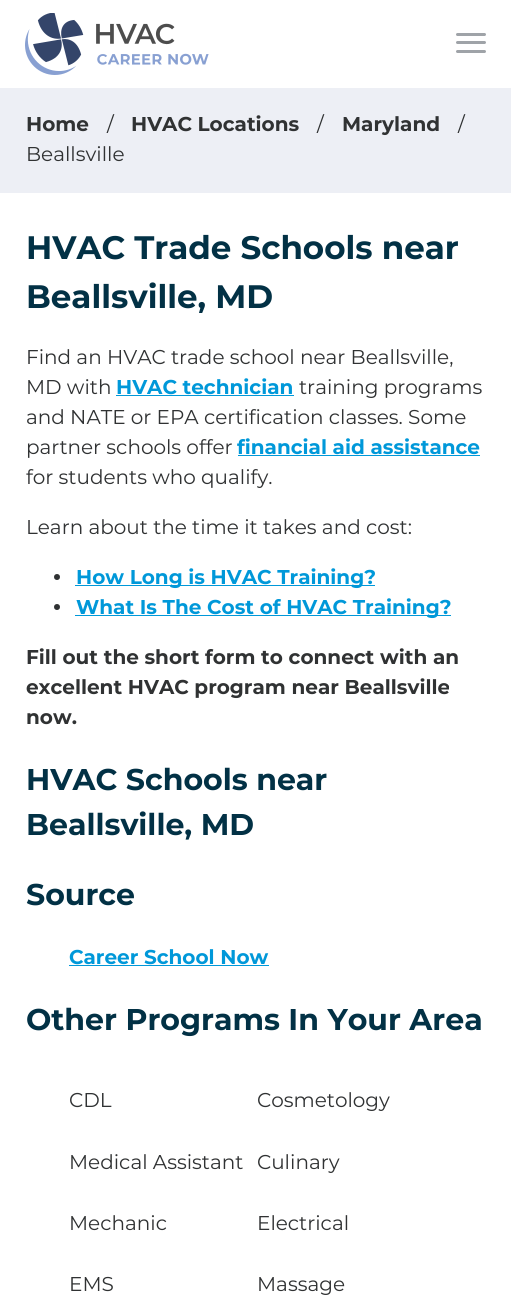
#include <cairo.h>
#include <math.h>
#include <stddef.h>

typedef struct { double x, y; const char *s; } line_t;

static void ink(cairo_t *ctx, unsigned color) {
    cairo_set_source_rgb(ctx, (color >> 16) / 255.0, (color >> 8 & 255) / 255.0, (color & 255) / 255.0);
}

static void round_path(cairo_t *ctx, double x, double y, double w, double h, double r) {
    cairo_new_sub_path(ctx);
    cairo_arc(ctx, x + w - r, y + h - r, r, 0, M_PI / 2);
    cairo_arc(ctx, x + r, y + h - r, r, M_PI / 2, M_PI);
    cairo_arc(ctx, x + r, y + r, r, M_PI, 1.5 * M_PI);
    cairo_arc(ctx, x + w - r, y + r, r, 1.5 * M_PI, 2 * M_PI);
    cairo_close_path(ctx);
}

static void paste(cairo_t *ctx, const char *path, double x, double y, double w, double h) {
    cairo_surface_t *image = cairo_image_surface_create_from_png(path);
    cairo_save(ctx);
    cairo_set_source_surface(ctx, image, x, y);
    cairo_rectangle(ctx, x, y, w, h);
    cairo_fill(ctx);
    cairo_restore(ctx);
    cairo_surface_destroy(image);
}

int main(void) {
    cairo_surface_t *surface = cairo_image_surface_create(CAIRO_FORMAT_RGB24, 511, 1299);
    cairo_t *ctx = cairo_create(surface);
    cairo_font_options_t *options = cairo_font_options_create();
    cairo_font_options_set_hint_metrics(options, CAIRO_HINT_METRICS_OFF);
    cairo_font_options_set_hint_style(options, CAIRO_HINT_STYLE_NONE);
    cairo_set_font_options(ctx, options);
    cairo_set_miter_limit(ctx, 4);
    ink(ctx, 0xFFFFFF);
    cairo_paint(ctx);
    paste(ctx, "media/1.png", 25, 13, 184, 62);
    ink(ctx, 0x9FA3A8);
    round_path(ctx, 456, 33, 30, 3, 1.5);
    cairo_fill(ctx);
    round_path(ctx, 456, 41, 30, 3, 1.5);
    cairo_fill(ctx);
    round_path(ctx, 456, 50, 30, 3, 1.5);
    cairo_fill(ctx);
    ink(ctx, 0xEDEFF5);
    cairo_rectangle(ctx, 0, 88, 511, 105);
    cairo_fill(ctx);
    cairo_select_font_face(ctx, "Montserrat", CAIRO_FONT_SLANT_NORMAL, CAIRO_FONT_WEIGHT_BOLD);
    cairo_set_font_size(ctx, 20);
    ink(ctx, 0x303233);
    cairo_move_to(ctx, 26, 131);
    cairo_show_text(ctx, "Home");
    cairo_select_font_face(ctx, "Montserrat", CAIRO_FONT_SLANT_NORMAL, CAIRO_FONT_WEIGHT_NORMAL);
    cairo_move_to(ctx, 107, 131);
    cairo_show_text(ctx, "/");
    cairo_select_font_face(ctx, "Montserrat", CAIRO_FONT_SLANT_NORMAL, CAIRO_FONT_WEIGHT_BOLD);
    cairo_move_to(ctx, 131, 131);
    cairo_show_text(ctx, "HVAC Locations");
    cairo_select_font_face(ctx, "Montserrat", CAIRO_FONT_SLANT_NORMAL, CAIRO_FONT_WEIGHT_NORMAL);
    cairo_move_to(ctx, 317, 131);
    cairo_show_text(ctx, "/");
    cairo_select_font_face(ctx, "Montserrat", CAIRO_FONT_SLANT_NORMAL, CAIRO_FONT_WEIGHT_BOLD);
    cairo_move_to(ctx, 342, 131);
    cairo_show_text(ctx, "Maryland");
    cairo_select_font_face(ctx, "Montserrat", CAIRO_FONT_SLANT_NORMAL, CAIRO_FONT_WEIGHT_NORMAL);
    cairo_move_to(ctx, 458, 131);
    cairo_show_text(ctx, "/");
    cairo_move_to(ctx, 26, 161);
    cairo_show_text(ctx, "Beallsville");
    cairo_select_font_face(ctx, "Montserrat", CAIRO_FONT_SLANT_NORMAL, CAIRO_FONT_WEIGHT_BOLD);
    cairo_set_font_size(ctx, 32.5);
    ink(ctx, 0x023145);
    cairo_move_to(ctx, 26, 259);
    cairo_show_text(ctx, "HVAC Trade Schools near");
    cairo_move_to(ctx, 26, 308);
    cairo_show_text(ctx, "Beallsville, MD");
    cairo_select_font_face(ctx, "Montserrat", CAIRO_FONT_SLANT_NORMAL, CAIRO_FONT_WEIGHT_NORMAL);
    cairo_set_font_size(ctx, 20);
    ink(ctx, 0x303233);
    cairo_move_to(ctx, 26, 364);
    cairo_show_text(ctx, "Find an HVAC trade school near Beallsville,");
    cairo_move_to(ctx, 26, 394);
    cairo_show_text(ctx, "MD with");
    cairo_select_font_face(ctx, "Montserrat", CAIRO_FONT_SLANT_NORMAL, CAIRO_FONT_WEIGHT_BOLD);
    ink(ctx, 0x0098D9);
    cairo_move_to(ctx, 116, 394);
    cairo_show_text(ctx, "HVAC technician");
    cairo_rectangle(ctx, 116, 395, 178, 1);
    cairo_fill(ctx);
    cairo_select_font_face(ctx, "Montserrat", CAIRO_FONT_SLANT_NORMAL, CAIRO_FONT_WEIGHT_NORMAL);
    ink(ctx, 0x303233);
    {
        static const line_t items[] = {
            {299, 394, "training programs"},
            {26, 424, "and NATE or EPA certification classes. Some"},
            {26, 454, "partner schools offer"},
        };
        for (size_t i = 0; i < sizeof items / sizeof *items; i++) {
            cairo_move_to(ctx, items[i].x, items[i].y);
            cairo_show_text(ctx, items[i].s);
        }
    }
    cairo_select_font_face(ctx, "Montserrat", CAIRO_FONT_SLANT_NORMAL, CAIRO_FONT_WEIGHT_BOLD);
    ink(ctx, 0x0098D9);
    cairo_move_to(ctx, 237, 454);
    cairo_show_text(ctx, "financial aid assistance");
    cairo_rectangle(ctx, 238, 455, 242, 1);
    cairo_fill(ctx);
    cairo_select_font_face(ctx, "Montserrat", CAIRO_FONT_SLANT_NORMAL, CAIRO_FONT_WEIGHT_NORMAL);
    ink(ctx, 0x303233);
    cairo_move_to(ctx, 26, 484);
    cairo_show_text(ctx, "for students who qualify.");
    cairo_move_to(ctx, 26, 534);
    cairo_show_text(ctx, "Learn about the time it takes and cost:");
    cairo_new_path(ctx);
    cairo_arc(ctx, 57, 577, 3, 0, 2 * M_PI);
    cairo_fill(ctx);
    ink(ctx, 0x0098D9);
    cairo_rectangle(ctx, 75, 585, 300, 1);
    cairo_fill(ctx);
    cairo_select_font_face(ctx, "Montserrat", CAIRO_FONT_SLANT_NORMAL, CAIRO_FONT_WEIGHT_BOLD);
    cairo_move_to(ctx, 76, 584);
    cairo_show_text(ctx, "How Long is HVAC Training?");
    ink(ctx, 0x303233);
    cairo_new_path(ctx);
    cairo_arc(ctx, 57, 607, 3, 0, 2 * M_PI);
    cairo_fill(ctx);
    ink(ctx, 0x0098D9);
    cairo_rectangle(ctx, 75, 615, 376, 1);
    cairo_fill(ctx);
    cairo_move_to(ctx, 76, 614);
    cairo_show_text(ctx, "What Is The Cost of HVAC Training?");
    ink(ctx, 0x303233);
    {
        static const line_t items[] = {
            {26, 664, "Fill out the short form to connect with an"},
            {26, 694, "excellent HVAC program near Beallsville"},
            {26, 724, "now."},
        };
        for (size_t i = 0; i < sizeof items / sizeof *items; i++) {
            cairo_move_to(ctx, items[i].x, items[i].y);
            cairo_show_text(ctx, items[i].s);
        }
    }
    cairo_set_font_size(ctx, 30);
    ink(ctx, 0x023145);
    {
        static const line_t items[] = {
            {26, 790, "HVAC Schools near"},
            {26, 835, "Beallsville, MD"},
            {26, 905, "Source"},
        };
        for (size_t i = 0; i < sizeof items / sizeof *items; i++) {
            cairo_move_to(ctx, items[i].x, items[i].y);
            cairo_show_text(ctx, items[i].s);
        }
    }
    cairo_set_font_size(ctx, 20);
    ink(ctx, 0x0098D9);
    cairo_move_to(ctx, 69, 964);
    cairo_show_text(ctx, "Career School Now");
    cairo_rectangle(ctx, 69, 965, 200, 1);
    cairo_fill(ctx);
    cairo_set_font_size(ctx, 30);
    ink(ctx, 0x023145);
    cairo_move_to(ctx, 26, 1030);
    cairo_show_text(ctx, "Other Programs In Your Area");
    cairo_select_font_face(ctx, "Montserrat", CAIRO_FONT_SLANT_NORMAL, CAIRO_FONT_WEIGHT_NORMAL);
    cairo_set_font_size(ctx, 20);
    ink(ctx, 0x303233);
    {
        static const line_t items[] = {
            {69, 1107, "CDL"},
            {257, 1107, "Cosmetology"},
            {69, 1169, "Medical Assistant"},
            {257, 1169, "Culinary"},
            {69, 1230, "Mechanic"},
            {257, 1230, "Electrical"},
            {69, 1291, "EMS"},
            {257, 1291, "Massage"},
        };
        for (size_t i = 0; i < sizeof items / sizeof *items; i++) {
            cairo_move_to(ctx, items[i].x, items[i].y);
            cairo_show_text(ctx, items[i].s);
        }
    }
    cairo_surface_write_to_png(surface, "image.png");
    cairo_font_options_destroy(options);
    cairo_destroy(ctx);
    cairo_surface_destroy(surface);
    return 0;
}
